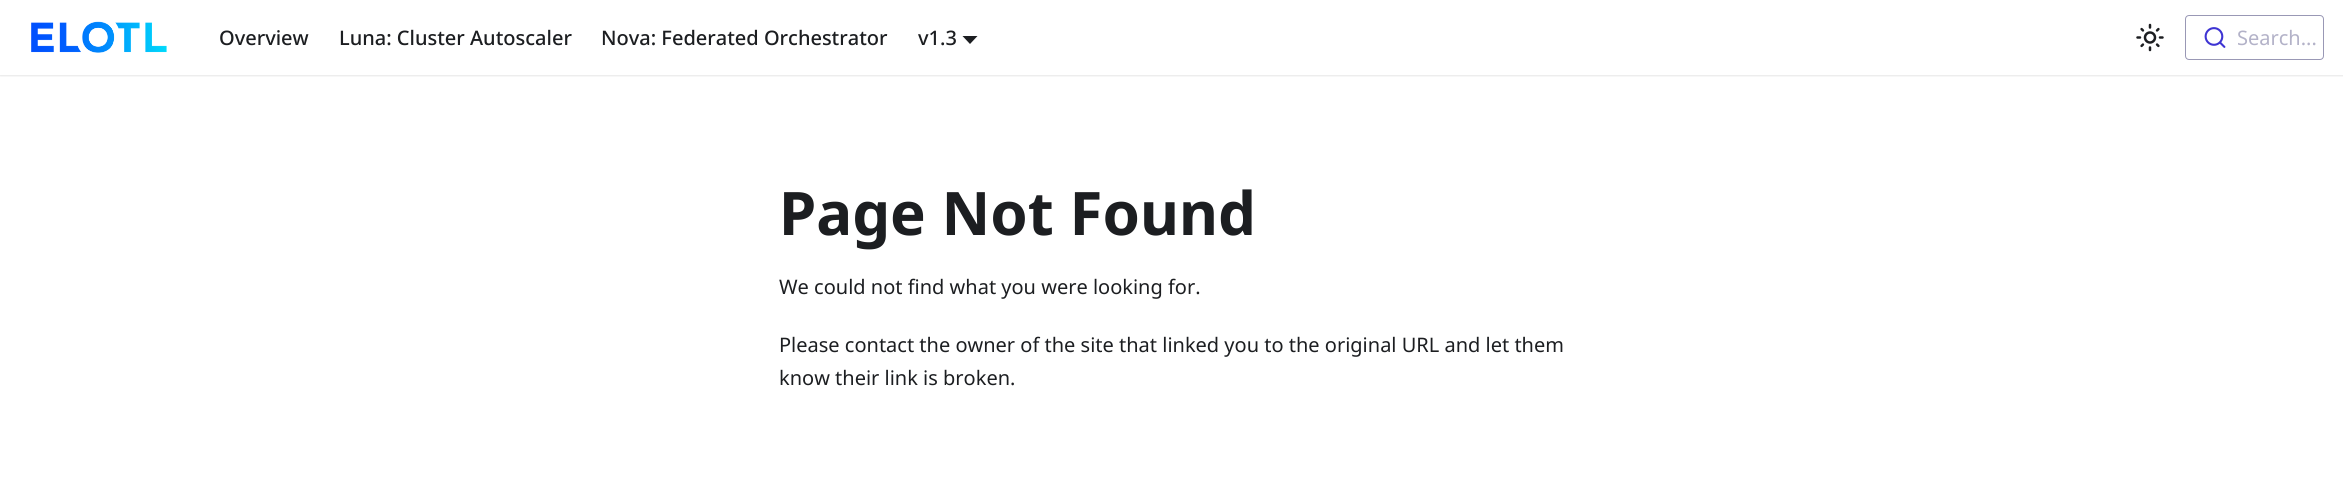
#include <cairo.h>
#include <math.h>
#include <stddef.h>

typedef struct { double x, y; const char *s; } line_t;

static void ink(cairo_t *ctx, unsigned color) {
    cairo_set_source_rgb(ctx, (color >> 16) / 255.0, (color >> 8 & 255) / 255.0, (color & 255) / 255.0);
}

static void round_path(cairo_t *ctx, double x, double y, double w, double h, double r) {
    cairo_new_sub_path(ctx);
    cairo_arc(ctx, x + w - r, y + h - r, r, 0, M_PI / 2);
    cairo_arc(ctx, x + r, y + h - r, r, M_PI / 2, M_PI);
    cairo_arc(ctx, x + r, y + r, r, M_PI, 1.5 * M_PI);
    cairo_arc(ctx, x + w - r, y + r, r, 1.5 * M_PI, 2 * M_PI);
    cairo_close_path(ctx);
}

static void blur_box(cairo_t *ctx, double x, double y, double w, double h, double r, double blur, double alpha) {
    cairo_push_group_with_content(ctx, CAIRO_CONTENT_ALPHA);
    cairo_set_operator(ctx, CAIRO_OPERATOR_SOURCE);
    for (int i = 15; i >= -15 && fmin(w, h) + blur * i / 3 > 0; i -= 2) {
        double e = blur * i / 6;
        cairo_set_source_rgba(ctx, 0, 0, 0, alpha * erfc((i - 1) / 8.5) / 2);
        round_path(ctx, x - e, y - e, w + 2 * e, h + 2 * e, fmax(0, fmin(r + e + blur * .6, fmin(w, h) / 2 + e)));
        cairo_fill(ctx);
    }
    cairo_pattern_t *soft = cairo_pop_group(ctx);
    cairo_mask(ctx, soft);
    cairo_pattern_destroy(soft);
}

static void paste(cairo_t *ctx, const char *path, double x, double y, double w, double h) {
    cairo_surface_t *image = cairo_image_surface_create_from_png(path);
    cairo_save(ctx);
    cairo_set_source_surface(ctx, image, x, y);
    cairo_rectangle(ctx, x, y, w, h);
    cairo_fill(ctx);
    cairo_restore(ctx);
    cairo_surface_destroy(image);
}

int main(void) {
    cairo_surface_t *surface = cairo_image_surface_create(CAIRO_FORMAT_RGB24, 2343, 480);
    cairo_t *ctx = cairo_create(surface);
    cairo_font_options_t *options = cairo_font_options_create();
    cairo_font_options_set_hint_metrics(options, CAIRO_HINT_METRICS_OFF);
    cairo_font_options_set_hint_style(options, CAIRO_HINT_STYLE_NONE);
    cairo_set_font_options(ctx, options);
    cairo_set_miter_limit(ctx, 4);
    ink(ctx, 0xFFFFFF);
    cairo_paint(ctx);
    cairo_save(ctx);
    cairo_rectangle(ctx, 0, 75, 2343, 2);
    cairo_clip(ctx);
    ink(ctx, 0x000000);
    blur_box(ctx, 0, 1, 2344, 75, 0, 1, 0.1);
    cairo_restore(ctx);
    paste(ctx, "media/1.png", 31, 21, 136, 32);
    cairo_select_font_face(ctx, "Noto Sans Medium", CAIRO_FONT_SLANT_NORMAL, CAIRO_FONT_WEIGHT_NORMAL);
    cairo_set_font_size(ctx, 20);
    ink(ctx, 0x1C1E21);
    {
        static const line_t items[] = {
            {219, 45, "Overview"},
            {339, 45, "Luna: Cluster Autoscaler"},
            {601, 45, "Nova: Federated Orchestrator"},
            {918, 45, "v1.3"},
        };
        for (size_t i = 0; i < sizeof items / sizeof *items; i++) {
            cairo_move_to(ctx, items[i].x, items[i].y);
            cairo_show_text(ctx, items[i].s);
        }
    }
    cairo_new_path(ctx);
    cairo_move_to(ctx, 962.5, 36);
    cairo_line_to(ctx, 977.5, 36);
    cairo_line_to(ctx, 970, 44);
    cairo_close_path(ctx);
    cairo_fill(ctx);
    paste(ctx, "media/2.png", 2136, 23, 28, 29);
    round_path(ctx, 2185.5, 15.5, 138, 44, 3.5);
    ink(ctx, 0x9998B5);
    cairo_set_line_width(ctx, 1);
    cairo_stroke(ctx);
    paste(ctx, "media/3.png", 2204, 27, 22, 21);
    cairo_select_font_face(ctx, "Noto Sans", CAIRO_FONT_SLANT_NORMAL, CAIRO_FONT_WEIGHT_NORMAL);
    ink(ctx, 0xB3B2C8);
    cairo_move_to(ctx, 2237, 45);
    cairo_show_text(ctx, "Search...");
    cairo_select_font_face(ctx, "Noto Sans", CAIRO_FONT_SLANT_NORMAL, CAIRO_FONT_WEIGHT_BOLD);
    cairo_set_font_size(ctx, 60);
    ink(ctx, 0x1C1E21);
    cairo_move_to(ctx, 779, 235);
    cairo_show_text(ctx, "Page Not Found");
    cairo_select_font_face(ctx, "Noto Sans", CAIRO_FONT_SLANT_NORMAL, CAIRO_FONT_WEIGHT_NORMAL);
    cairo_set_font_size(ctx, 20);
    {
        static const line_t items[] = {
            {779, 294, "We could not find what you were looking for."},
            {779, 352, "Please contact the owner of the site that linked you to the original URL and let them"},
            {779, 385, "know their link is broken."},
        };
        for (size_t i = 0; i < sizeof items / sizeof *items; i++) {
            cairo_move_to(ctx, items[i].x, items[i].y);
            cairo_show_text(ctx, items[i].s);
        }
    }
    cairo_surface_write_to_png(surface, "image.png");
    cairo_font_options_destroy(options);
    cairo_destroy(ctx);
    cairo_surface_destroy(surface);
    return 0;
}
